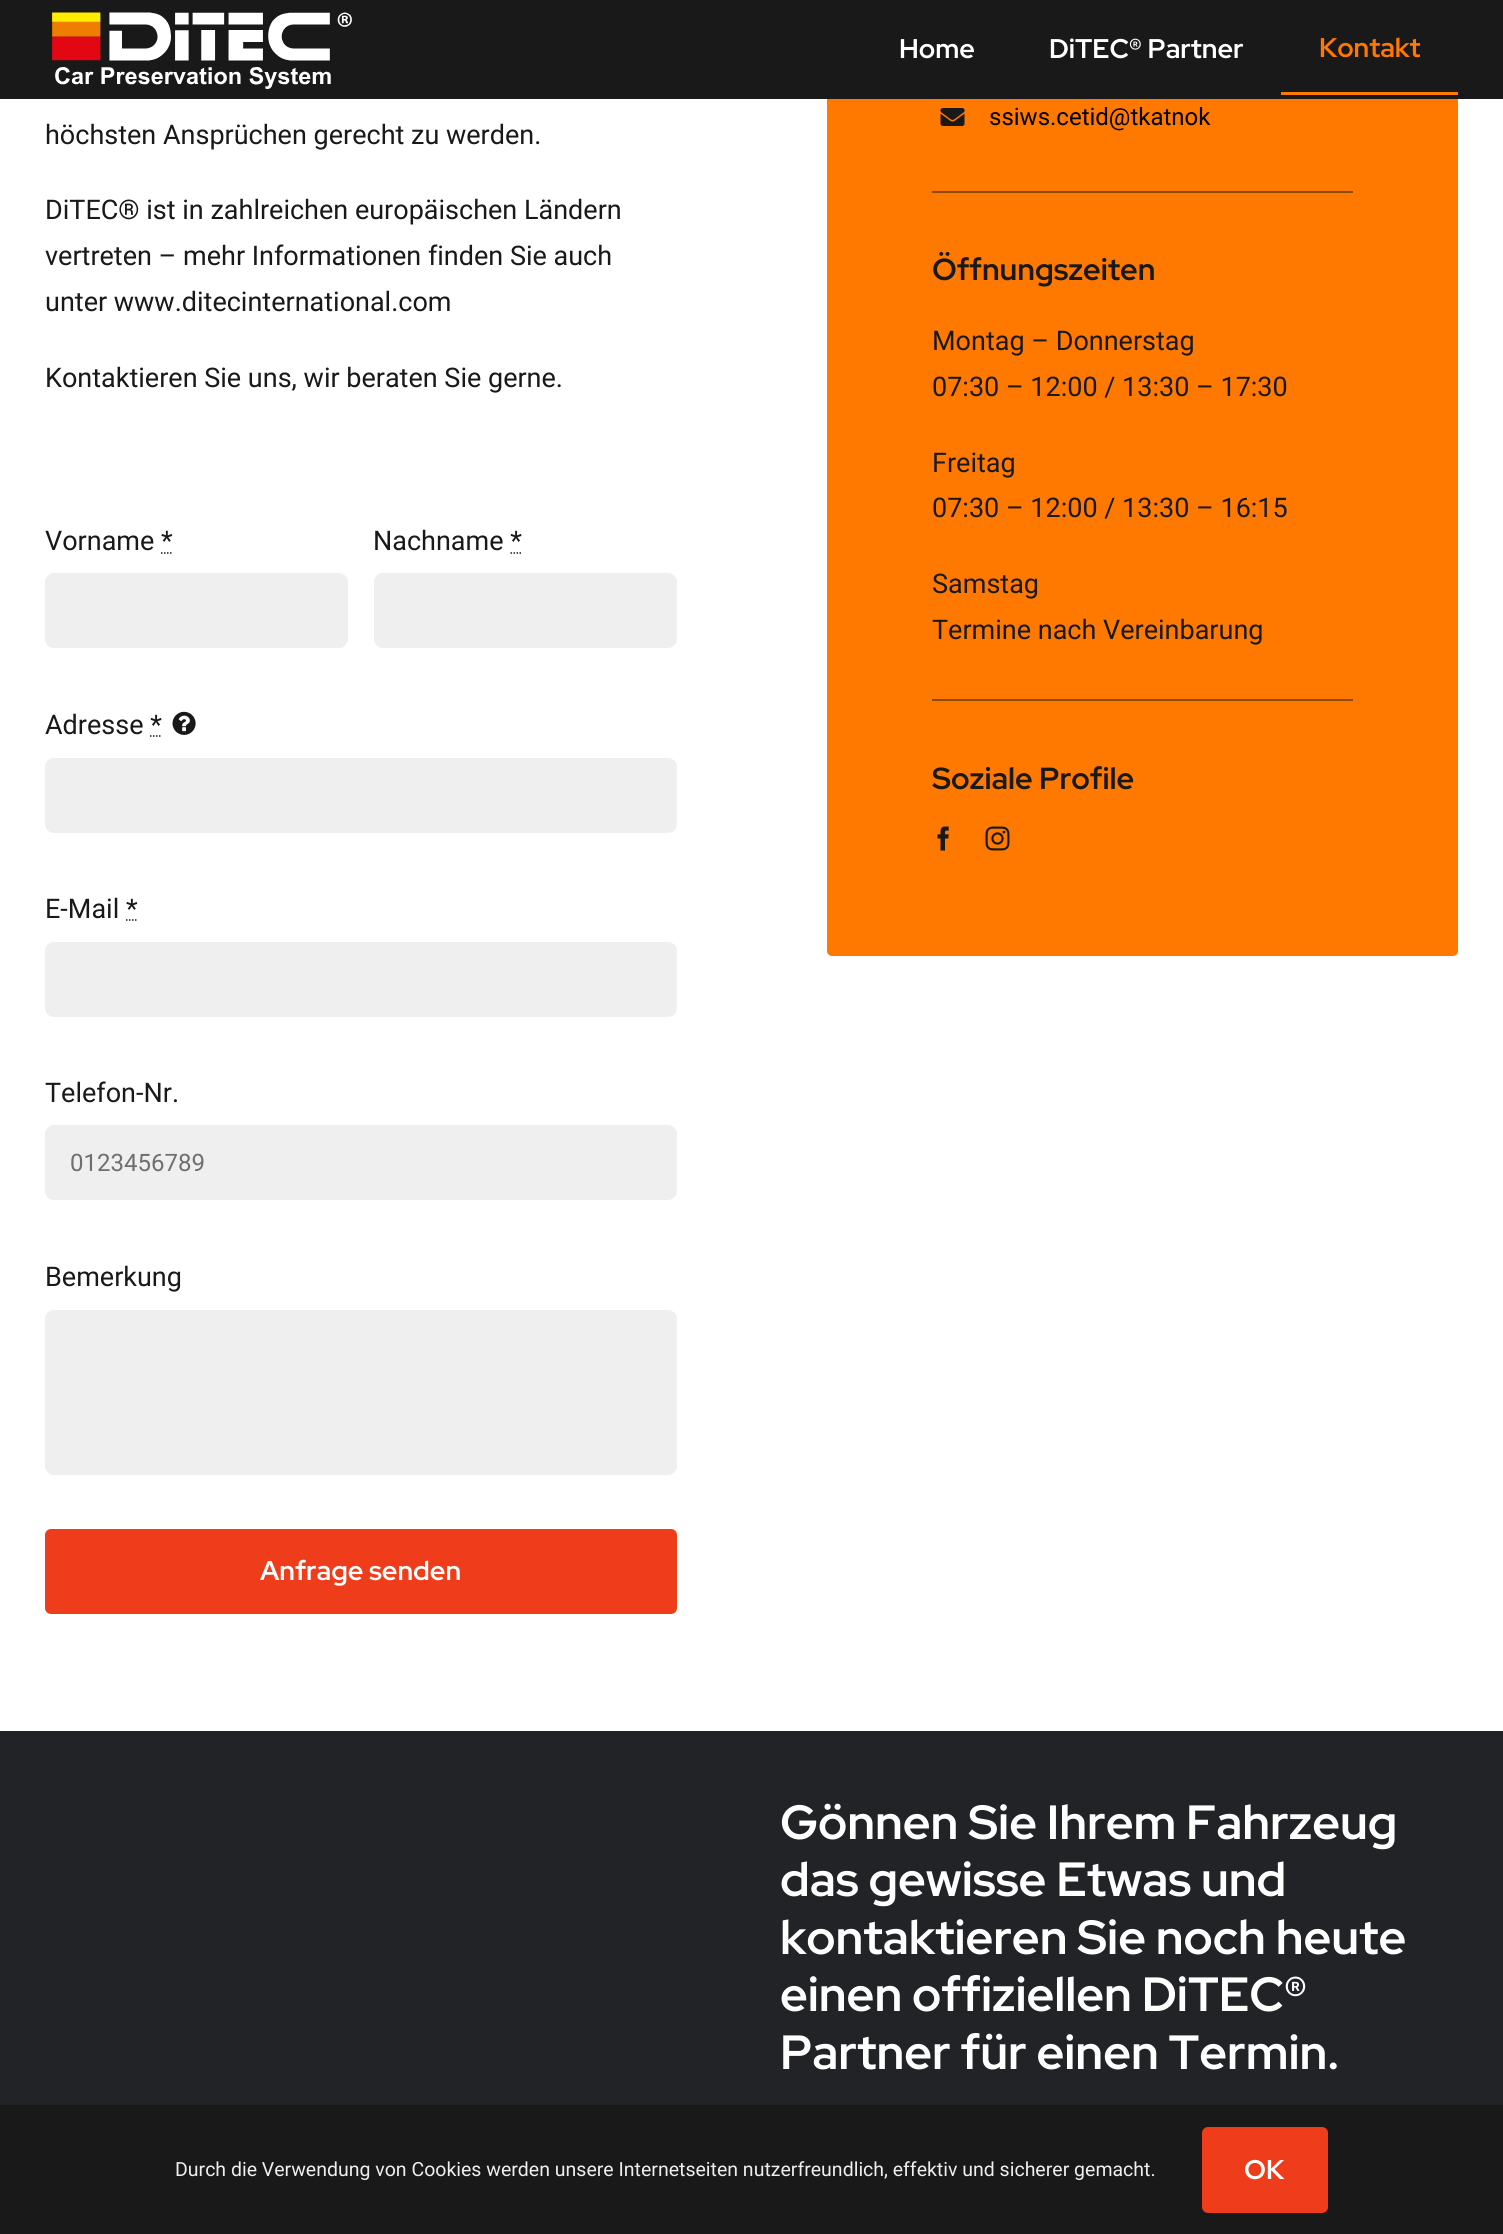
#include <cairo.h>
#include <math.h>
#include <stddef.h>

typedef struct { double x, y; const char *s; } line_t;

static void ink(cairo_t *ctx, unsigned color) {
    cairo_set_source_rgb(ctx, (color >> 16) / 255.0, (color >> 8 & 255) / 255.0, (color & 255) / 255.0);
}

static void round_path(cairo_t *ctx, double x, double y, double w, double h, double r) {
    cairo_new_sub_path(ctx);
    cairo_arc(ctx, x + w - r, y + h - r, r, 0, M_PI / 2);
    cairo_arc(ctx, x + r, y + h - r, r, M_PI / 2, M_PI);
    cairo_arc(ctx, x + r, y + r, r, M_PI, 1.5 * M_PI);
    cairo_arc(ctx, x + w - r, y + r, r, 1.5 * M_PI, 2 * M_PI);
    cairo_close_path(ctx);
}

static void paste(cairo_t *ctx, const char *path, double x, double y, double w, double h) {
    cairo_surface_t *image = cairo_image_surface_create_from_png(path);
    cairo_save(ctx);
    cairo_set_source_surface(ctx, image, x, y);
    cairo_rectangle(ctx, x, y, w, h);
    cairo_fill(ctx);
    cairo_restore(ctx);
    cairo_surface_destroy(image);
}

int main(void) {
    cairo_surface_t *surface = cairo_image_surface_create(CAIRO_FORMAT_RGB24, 1503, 2234);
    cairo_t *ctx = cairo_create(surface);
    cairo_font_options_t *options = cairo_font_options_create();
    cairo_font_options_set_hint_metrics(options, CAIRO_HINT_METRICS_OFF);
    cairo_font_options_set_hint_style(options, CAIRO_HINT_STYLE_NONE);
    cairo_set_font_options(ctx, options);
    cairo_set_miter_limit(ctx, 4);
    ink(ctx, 0xFFFFFF);
    cairo_paint(ctx);
    ink(ctx, 0xFF7900);
    round_path(ctx, 827, -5, 631, 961, 5);
    cairo_fill(ctx);
    ink(ctx, 0x191919);
    cairo_rectangle(ctx, 0, 0, 1503, 99);
    cairo_fill(ctx);
    paste(ctx, "media/1.png", 52, 12, 300, 77);
    cairo_select_font_face(ctx, "Red Hat Display", CAIRO_FONT_SLANT_NORMAL, CAIRO_FONT_WEIGHT_BOLD);
    cairo_set_font_size(ctx, 27);
    ink(ctx, 0xFFFFFF);
    cairo_move_to(ctx, 899, 58);
    cairo_show_text(ctx, "Home");
    cairo_move_to(ctx, 1049, 58);
    cairo_show_text(ctx, "DiTEC® Partner");
    ink(ctx, 0xFF7900);
    cairo_move_to(ctx, 1319, 57);
    cairo_show_text(ctx, "Kontakt");
    cairo_rectangle(ctx, 1281, 92, 177, 3);
    cairo_fill(ctx);
    cairo_select_font_face(ctx, "Roboto", CAIRO_FONT_SLANT_NORMAL, CAIRO_FONT_WEIGHT_NORMAL);
    ink(ctx, 0x191919);
    {
        static const line_t items[] = {
            {45, 144, "höchsten Ansprüchen gerecht zu werden."},
            {45, 219, "DiTEC® ist in zahlreichen europäischen Ländern"},
            {45, 265, "vertreten – mehr Informationen finden Sie auch"},
            {45, 311, "unter www.ditecinternational.com"},
            {45, 387, "Kontaktieren Sie uns, wir beraten Sie gerne."},
            {45, 550, "Vorname *"},
        };
        for (size_t i = 0; i < sizeof items / sizeof *items; i++) {
            cairo_move_to(ctx, items[i].x, items[i].y);
            cairo_show_text(ctx, items[i].s);
        }
    }
    cairo_new_path(ctx);
    cairo_move_to(ctx, 161, 553);
    cairo_line_to(ctx, 172.5, 553);
    cairo_set_line_width(ctx, 1.5);
    cairo_set_dash(ctx, (double[]){1.5, 1.5}, 2, 0);
    cairo_stroke(ctx);
    ink(ctx, 0xEFEFEF);
    round_path(ctx, 46, 574, 301, 73, 8);
    cairo_fill_preserve(ctx);
    cairo_set_line_width(ctx, 2);
    cairo_set_dash(ctx, NULL, 0, 0);
    cairo_stroke(ctx);
    ink(ctx, 0x191919);
    cairo_move_to(ctx, 373, 550);
    cairo_show_text(ctx, "Nachname *");
    cairo_new_path(ctx);
    cairo_move_to(ctx, 510.5, 553);
    cairo_line_to(ctx, 522, 553);
    cairo_set_line_width(ctx, 1.5);
    cairo_set_dash(ctx, (double[]){1.5, 1.5}, 2, 0);
    cairo_stroke(ctx);
    ink(ctx, 0xEFEFEF);
    round_path(ctx, 375, 574, 301, 73, 8);
    cairo_fill_preserve(ctx);
    cairo_set_line_width(ctx, 2);
    cairo_set_dash(ctx, NULL, 0, 0);
    cairo_stroke(ctx);
    ink(ctx, 0x191919);
    cairo_move_to(ctx, 45, 734);
    cairo_show_text(ctx, "Adresse *");
    cairo_new_path(ctx);
    cairo_move_to(ctx, 150, 736);
    cairo_line_to(ctx, 162, 736);
    cairo_set_line_width(ctx, 1.5);
    cairo_set_dash(ctx, (double[]){1.5, 1.5}, 2, 0);
    cairo_stroke(ctx);
    paste(ctx, "media/2.png", 172, 711, 24, 24);
    ink(ctx, 0xEFEFEF);
    round_path(ctx, 46, 759, 630, 73, 8);
    cairo_fill_preserve(ctx);
    cairo_set_line_width(ctx, 2);
    cairo_set_dash(ctx, NULL, 0, 0);
    cairo_stroke(ctx);
    ink(ctx, 0x191919);
    cairo_move_to(ctx, 45, 918);
    cairo_show_text(ctx, "E-Mail *");
    cairo_new_path(ctx);
    cairo_move_to(ctx, 126, 920);
    cairo_line_to(ctx, 137.5, 920);
    cairo_set_line_width(ctx, 1.5);
    cairo_set_dash(ctx, (double[]){1.5, 1.5}, 2, 0);
    cairo_stroke(ctx);
    ink(ctx, 0xEFEFEF);
    round_path(ctx, 46, 943, 630, 73, 8);
    cairo_fill_preserve(ctx);
    cairo_set_line_width(ctx, 2);
    cairo_set_dash(ctx, NULL, 0, 0);
    cairo_stroke(ctx);
    ink(ctx, 0x191919);
    cairo_move_to(ctx, 45, 1102);
    cairo_show_text(ctx, "Telefon-Nr.");
    ink(ctx, 0xEFEFEF);
    round_path(ctx, 46, 1126, 630, 73, 8);
    cairo_fill_preserve(ctx);
    cairo_stroke(ctx);
    cairo_set_font_size(ctx, 24);
    ink(ctx, 0x6F6F6F);
    cairo_move_to(ctx, 70, 1171);
    cairo_show_text(ctx, "0123456789");
    cairo_set_font_size(ctx, 27);
    ink(ctx, 0x191919);
    cairo_move_to(ctx, 45, 1286);
    cairo_show_text(ctx, "Bemerkung");
    ink(ctx, 0xEFEFEF);
    round_path(ctx, 46, 1311, 630, 163, 8);
    cairo_fill_preserve(ctx);
    cairo_stroke(ctx);
    ink(ctx, 0xEF3C1A);
    round_path(ctx, 45, 1529, 632, 85, 6);
    cairo_fill(ctx);
    cairo_select_font_face(ctx, "Red Hat Display", CAIRO_FONT_SLANT_NORMAL, CAIRO_FONT_WEIGHT_BOLD);
    ink(ctx, 0xFFFFFF);
    cairo_move_to(ctx, 260, 1580);
    cairo_show_text(ctx, "Anfrage senden");
    paste(ctx, "media/3.png", 940, 108, 25, 18);
    cairo_select_font_face(ctx, "Roboto", CAIRO_FONT_SLANT_NORMAL, CAIRO_FONT_WEIGHT_NORMAL);
    cairo_set_font_size(ctx, 24);
    ink(ctx, 0x000000);
    cairo_move_to(ctx, 989, 125);
    cairo_show_text(ctx, "ssiws.cetid@tkatnok");
    ink(ctx, 0x8D4A0D);
    cairo_rectangle(ctx, 932, 191, 421, 2);
    cairo_fill(ctx);
    cairo_select_font_face(ctx, "Red Hat Display", CAIRO_FONT_SLANT_NORMAL, CAIRO_FONT_WEIGHT_BOLD);
    cairo_set_font_size(ctx, 30.5);
    ink(ctx, 0x191919);
    cairo_move_to(ctx, 932, 280);
    cairo_show_text(ctx, "Öffnungszeiten");
    cairo_select_font_face(ctx, "Roboto", CAIRO_FONT_SLANT_NORMAL, CAIRO_FONT_WEIGHT_NORMAL);
    cairo_set_font_size(ctx, 27);
    {
        static const line_t items[] = {
            {932, 350, "Montag – Donnerstag"},
            {932, 396, "07:30 – 12:00 / 13:30 – 17:30"},
            {932, 472, "Freitag"},
            {932, 517, "07:30 – 12:00 / 13:30 – 16:15"},
            {932, 593, "Samstag"},
            {932, 639, "Termine nach Vereinbarung"},
        };
        for (size_t i = 0; i < sizeof items / sizeof *items; i++) {
            cairo_move_to(ctx, items[i].x, items[i].y);
            cairo_show_text(ctx, items[i].s);
        }
    }
    ink(ctx, 0x8D4A0D);
    cairo_rectangle(ctx, 932, 699, 421, 2);
    cairo_fill(ctx);
    cairo_select_font_face(ctx, "Red Hat Display", CAIRO_FONT_SLANT_NORMAL, CAIRO_FONT_WEIGHT_BOLD);
    cairo_set_font_size(ctx, 30.5);
    ink(ctx, 0x191919);
    cairo_move_to(ctx, 932, 789);
    cairo_show_text(ctx, "Soziale Profile");
    paste(ctx, "media/4.png", 937, 826, 12, 25);
    paste(ctx, "media/5.png", 985, 826, 25, 25);
    ink(ctx, 0x212326);
    cairo_rectangle(ctx, 0, 1731, 1503, 374);
    cairo_fill(ctx);
    cairo_set_font_size(ctx, 48);
    ink(ctx, 0xFFFFFF);
    {
        static const line_t items[] = {
            {780, 1839, "Gönnen Sie Ihrem Fahrzeug"},
            {780, 1896, "das gewisse Etwas und"},
            {780, 1954, "kontaktieren Sie noch heute"},
            {780, 2011, "einen offiziellen DiTEC®"},
            {780, 2069, "Partner für einen Termin."},
        };
        for (size_t i = 0; i < sizeof items / sizeof *items; i++) {
            cairo_move_to(ctx, items[i].x, items[i].y);
            cairo_show_text(ctx, items[i].s);
        }
    }
    ink(ctx, 0x191919);
    cairo_rectangle(ctx, 0, 2105, 1503, 129);
    cairo_fill(ctx);
    cairo_select_font_face(ctx, "Roboto", CAIRO_FONT_SLANT_NORMAL, CAIRO_FONT_WEIGHT_NORMAL);
    cairo_set_font_size(ctx, 19.5);
    ink(ctx, 0xEFEFEF);
    cairo_move_to(ctx, 175, 2176);
    cairo_show_text(ctx, "Durch die Verwendung von Cookies werden unsere Internetseiten nutzerfreundlich, effektiv und sicherer gemacht.");
    ink(ctx, 0xEF3C1A);
    round_path(ctx, 1202, 2127, 126, 86, 6);
    cairo_fill(ctx);
    cairo_select_font_face(ctx, "Red Hat Display", CAIRO_FONT_SLANT_NORMAL, CAIRO_FONT_WEIGHT_BOLD);
    cairo_set_font_size(ctx, 27);
    ink(ctx, 0xFFFFFF);
    cairo_move_to(ctx, 1244, 2179);
    cairo_show_text(ctx, "OK");
    cairo_surface_write_to_png(surface, "image.png");
    cairo_font_options_destroy(options);
    cairo_destroy(ctx);
    cairo_surface_destroy(surface);
    return 0;
}
